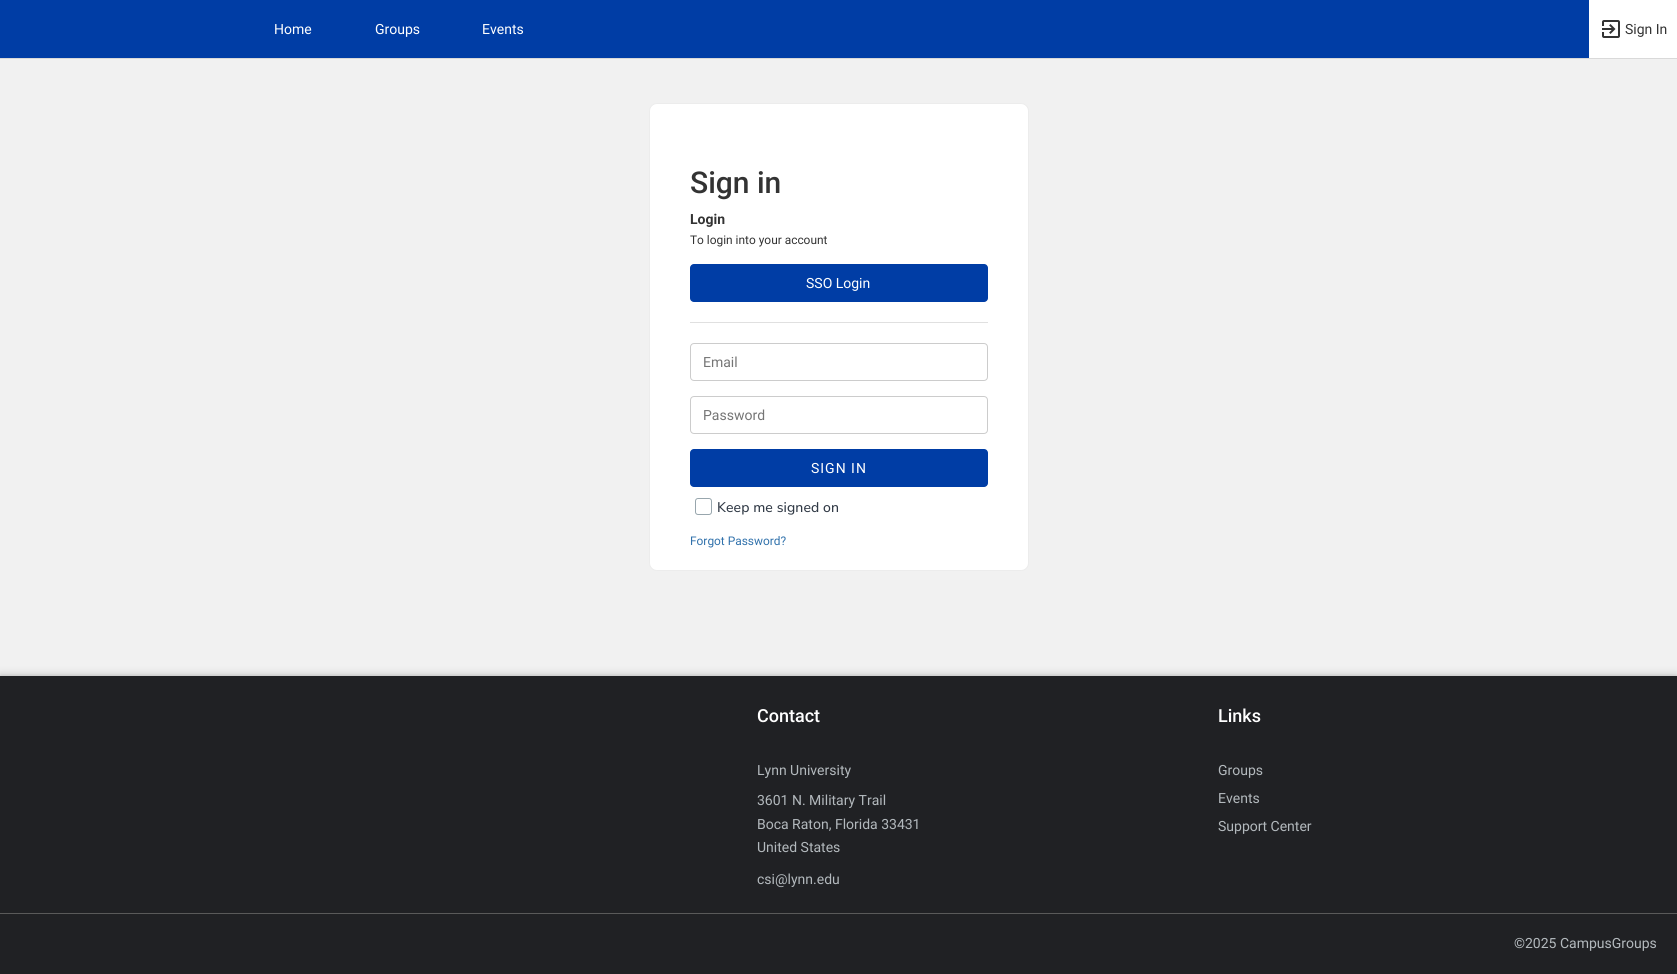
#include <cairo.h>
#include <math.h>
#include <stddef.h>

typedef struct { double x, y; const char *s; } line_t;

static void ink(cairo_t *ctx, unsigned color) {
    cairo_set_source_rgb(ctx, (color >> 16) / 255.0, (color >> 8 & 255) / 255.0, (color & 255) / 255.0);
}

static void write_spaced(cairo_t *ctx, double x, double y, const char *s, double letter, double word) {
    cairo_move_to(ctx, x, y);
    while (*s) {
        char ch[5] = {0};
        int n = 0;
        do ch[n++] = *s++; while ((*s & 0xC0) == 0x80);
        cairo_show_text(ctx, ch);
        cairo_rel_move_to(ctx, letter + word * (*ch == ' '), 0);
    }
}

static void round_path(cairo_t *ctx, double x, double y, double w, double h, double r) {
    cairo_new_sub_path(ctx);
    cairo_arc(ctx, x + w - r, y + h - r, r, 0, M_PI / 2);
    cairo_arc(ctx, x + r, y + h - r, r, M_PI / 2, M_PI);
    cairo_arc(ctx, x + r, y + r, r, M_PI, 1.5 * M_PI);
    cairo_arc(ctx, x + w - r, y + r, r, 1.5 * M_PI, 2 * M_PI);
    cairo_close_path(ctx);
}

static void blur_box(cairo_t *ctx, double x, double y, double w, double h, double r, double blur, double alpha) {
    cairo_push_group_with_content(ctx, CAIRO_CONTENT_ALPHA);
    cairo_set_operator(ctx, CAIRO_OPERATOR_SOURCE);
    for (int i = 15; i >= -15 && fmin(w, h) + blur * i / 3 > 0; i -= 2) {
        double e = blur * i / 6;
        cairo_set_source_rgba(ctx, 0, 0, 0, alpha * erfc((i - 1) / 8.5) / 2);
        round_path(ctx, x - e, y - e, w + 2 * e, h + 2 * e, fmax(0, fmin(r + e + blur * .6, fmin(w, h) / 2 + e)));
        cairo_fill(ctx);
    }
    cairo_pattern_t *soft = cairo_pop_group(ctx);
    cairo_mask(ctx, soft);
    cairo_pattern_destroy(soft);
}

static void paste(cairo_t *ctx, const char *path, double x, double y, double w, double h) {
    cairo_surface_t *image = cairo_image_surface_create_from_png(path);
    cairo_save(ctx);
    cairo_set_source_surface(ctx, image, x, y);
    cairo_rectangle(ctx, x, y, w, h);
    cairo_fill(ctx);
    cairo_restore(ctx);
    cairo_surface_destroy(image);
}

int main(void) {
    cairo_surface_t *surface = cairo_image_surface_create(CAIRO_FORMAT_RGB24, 1677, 974);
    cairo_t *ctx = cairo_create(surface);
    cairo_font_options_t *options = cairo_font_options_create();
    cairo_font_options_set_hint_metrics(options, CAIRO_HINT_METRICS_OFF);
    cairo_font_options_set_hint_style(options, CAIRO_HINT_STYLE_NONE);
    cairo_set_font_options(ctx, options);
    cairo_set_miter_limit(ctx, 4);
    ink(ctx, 0xF1F1F1);
    cairo_paint(ctx);
    ink(ctx, 0x003DA5);
    cairo_rectangle(ctx, 0, 0, 1589, 58);
    cairo_fill(ctx);
    ink(ctx, 0xD9D9D9);
    cairo_rectangle(ctx, 0, 58, 1677, 1);
    cairo_fill(ctx);
    cairo_select_font_face(ctx, "Roboto", CAIRO_FONT_SLANT_NORMAL, CAIRO_FONT_WEIGHT_NORMAL);
    cairo_set_font_size(ctx, 14);
    ink(ctx, 0xFFFFFF);
    {
        static const line_t items[] = {
            {274, 34, "Home"},
            {375, 34, "Groups"},
            {482, 34, "Events"},
        };
        for (size_t i = 0; i < sizeof items / sizeof *items; i++) {
            cairo_move_to(ctx, items[i].x, items[i].y);
            cairo_show_text(ctx, items[i].s);
        }
    }
    cairo_rectangle(ctx, 1589, 0, 88, 58);
    cairo_fill(ctx);
    paste(ctx, "media/1.png", 1602, 20, 18, 18);
    ink(ctx, 0x333333);
    cairo_move_to(ctx, 1625, 34);
    cairo_show_text(ctx, "Sign In");
    ink(ctx, 0xFFFFFF);
    round_path(ctx, 649.5, 103.5, 379, 467, 7.5);
    cairo_fill_preserve(ctx);
    ink(ctx, 0xECECEC);
    cairo_set_line_width(ctx, 1);
    cairo_stroke(ctx);
    cairo_select_font_face(ctx, "Roboto Medium", CAIRO_FONT_SLANT_NORMAL, CAIRO_FONT_WEIGHT_NORMAL);
    cairo_set_font_size(ctx, 30);
    ink(ctx, 0x333333);
    cairo_move_to(ctx, 690, 193);
    cairo_show_text(ctx, "Sign in");
    cairo_select_font_face(ctx, "Roboto", CAIRO_FONT_SLANT_NORMAL, CAIRO_FONT_WEIGHT_BOLD);
    cairo_set_font_size(ctx, 14);
    cairo_move_to(ctx, 690, 224);
    cairo_show_text(ctx, "Login");
    cairo_select_font_face(ctx, "Roboto", CAIRO_FONT_SLANT_NORMAL, CAIRO_FONT_WEIGHT_NORMAL);
    cairo_set_font_size(ctx, 11.9);
    cairo_move_to(ctx, 690, 244);
    cairo_show_text(ctx, "To login into your account");
    ink(ctx, 0x003DA5);
    round_path(ctx, 690, 264, 298, 38, 4);
    cairo_fill(ctx);
    cairo_set_font_size(ctx, 14);
    ink(ctx, 0xFFFFFF);
    cairo_move_to(ctx, 806, 288);
    cairo_show_text(ctx, "SSO Login");
    ink(ctx, 0xE0E0E0);
    cairo_rectangle(ctx, 690, 322, 298, 1);
    cairo_fill(ctx);
    round_path(ctx, 690.5, 343.5, 297, 37, 3.5);
    ink(ctx, 0xCCCCCC);
    cairo_stroke(ctx);
    ink(ctx, 0x757575);
    cairo_move_to(ctx, 703, 367);
    cairo_show_text(ctx, "Email");
    round_path(ctx, 690.5, 396.5, 297, 37, 3.5);
    ink(ctx, 0xCCCCCC);
    cairo_stroke(ctx);
    ink(ctx, 0x757575);
    cairo_move_to(ctx, 703, 420);
    cairo_show_text(ctx, "Password");
    ink(ctx, 0x003DA5);
    round_path(ctx, 690, 449, 298, 38, 4);
    cairo_fill(ctx);
    ink(ctx, 0xFFFFFF);
    write_spaced(ctx, 811, 473, "SIGN IN", 1, 0);
    round_path(ctx, 695.5, 498.5, 16, 16, 2.5);
    ink(ctx, 0x98A6AD);
    cairo_stroke(ctx);
    ink(ctx, 0xFFFFFF);
    round_path(ctx, 697, 499, 13, 13, 2);
    cairo_fill(ctx);
    cairo_select_font_face(ctx, "Nunito Sans Medium", CAIRO_FONT_SLANT_NORMAL, CAIRO_FONT_WEIGHT_NORMAL);
    ink(ctx, 0x313A46);
    write_spaced(ctx, 717, 512, "Keep me signed on", 0.1, 0);
    cairo_select_font_face(ctx, "Roboto", CAIRO_FONT_SLANT_NORMAL, CAIRO_FONT_WEIGHT_NORMAL);
    cairo_set_font_size(ctx, 11.9);
    ink(ctx, 0x3071AB);
    cairo_move_to(ctx, 690, 545);
    cairo_show_text(ctx, "Forgot Password?");
    ink(ctx, 0x000000);
    blur_box(ctx, 0, 675, 1677, 298, 0, 5, 0.14);
    blur_box(ctx, 0, 675, 1677, 298, 0, 1.5, 0.1);
    ink(ctx, 0x202124);
    cairo_rectangle(ctx, 0, 676, 1677, 298);
    cairo_fill(ctx);
    cairo_select_font_face(ctx, "Roboto Medium", CAIRO_FONT_SLANT_NORMAL, CAIRO_FONT_WEIGHT_NORMAL);
    cairo_set_font_size(ctx, 18);
    ink(ctx, 0xFFFFFF);
    cairo_move_to(ctx, 757, 722);
    cairo_show_text(ctx, "Contact");
    cairo_select_font_face(ctx, "Roboto", CAIRO_FONT_SLANT_NORMAL, CAIRO_FONT_WEIGHT_NORMAL);
    cairo_set_font_size(ctx, 14);
    ink(ctx, 0xB3B9BD);
    {
        static const line_t items[] = {
            {757, 775, "Lynn University"},
            {757, 805, "3601 N. Military Trail"},
            {757, 829, "Boca Raton, Florida 33431"},
            {757, 852, "United States"},
            {757, 884, "csi@lynn.edu"},
        };
        for (size_t i = 0; i < sizeof items / sizeof *items; i++) {
            cairo_move_to(ctx, items[i].x, items[i].y);
            cairo_show_text(ctx, items[i].s);
        }
    }
    cairo_select_font_face(ctx, "Roboto Medium", CAIRO_FONT_SLANT_NORMAL, CAIRO_FONT_WEIGHT_NORMAL);
    cairo_set_font_size(ctx, 18);
    ink(ctx, 0xFFFFFF);
    cairo_move_to(ctx, 1218, 722);
    cairo_show_text(ctx, "Links");
    cairo_select_font_face(ctx, "Roboto", CAIRO_FONT_SLANT_NORMAL, CAIRO_FONT_WEIGHT_NORMAL);
    cairo_set_font_size(ctx, 14);
    ink(ctx, 0xB3B9BD);
    {
        static const line_t items[] = {
            {1218, 775, "Groups"},
            {1218, 803, "Events"},
            {1218, 831, "Support Center"},
        };
        for (size_t i = 0; i < sizeof items / sizeof *items; i++) {
            cairo_move_to(ctx, items[i].x, items[i].y);
            cairo_show_text(ctx, items[i].s);
        }
    }
    ink(ctx, 0x5A5A5A);
    cairo_rectangle(ctx, 0, 913, 1677, 1);
    cairo_fill(ctx);
    ink(ctx, 0xB3B9BD);
    cairo_move_to(ctx, 1514, 948);
    cairo_show_text(ctx, "©2025 CampusGroups");
    cairo_surface_write_to_png(surface, "image.png");
    cairo_font_options_destroy(options);
    cairo_destroy(ctx);
    cairo_surface_destroy(surface);
    return 0;
}
